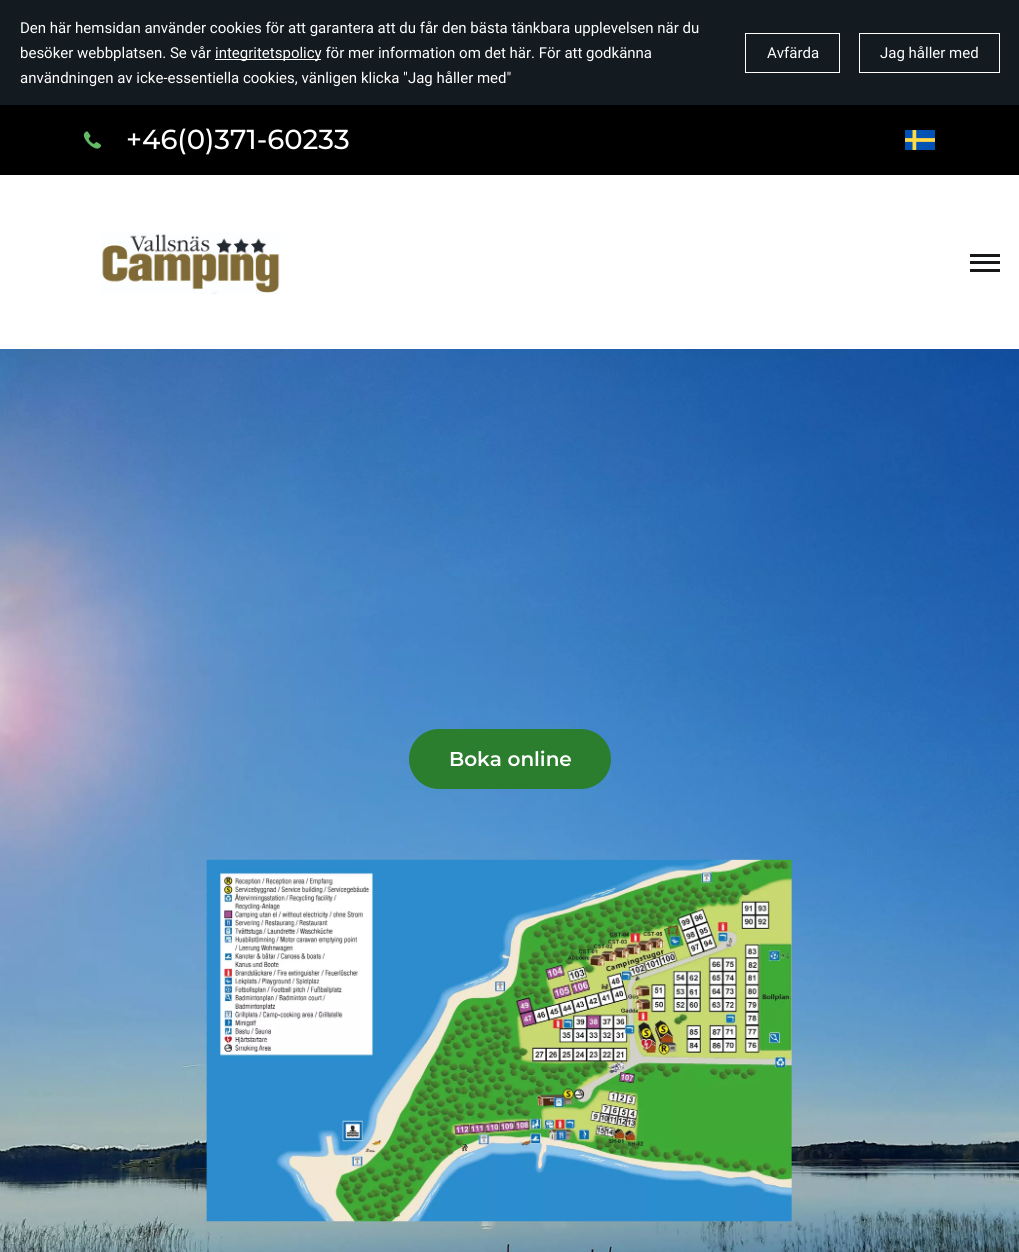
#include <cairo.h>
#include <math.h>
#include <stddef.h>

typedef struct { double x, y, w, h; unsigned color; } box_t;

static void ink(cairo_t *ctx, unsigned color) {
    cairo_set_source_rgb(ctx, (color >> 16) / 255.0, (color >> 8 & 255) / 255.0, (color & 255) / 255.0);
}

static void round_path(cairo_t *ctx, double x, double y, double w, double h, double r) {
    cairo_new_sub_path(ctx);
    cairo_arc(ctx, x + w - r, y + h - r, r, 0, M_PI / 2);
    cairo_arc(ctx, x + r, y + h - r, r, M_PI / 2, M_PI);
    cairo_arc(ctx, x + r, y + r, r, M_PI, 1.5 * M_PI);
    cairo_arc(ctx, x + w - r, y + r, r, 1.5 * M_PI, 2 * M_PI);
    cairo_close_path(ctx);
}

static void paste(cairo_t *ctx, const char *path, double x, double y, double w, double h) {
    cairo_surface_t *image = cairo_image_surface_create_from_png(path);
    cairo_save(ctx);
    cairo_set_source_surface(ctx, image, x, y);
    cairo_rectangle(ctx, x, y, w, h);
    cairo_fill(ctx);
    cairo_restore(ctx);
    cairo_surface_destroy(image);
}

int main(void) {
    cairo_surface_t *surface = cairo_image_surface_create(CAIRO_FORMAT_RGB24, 1019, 1252);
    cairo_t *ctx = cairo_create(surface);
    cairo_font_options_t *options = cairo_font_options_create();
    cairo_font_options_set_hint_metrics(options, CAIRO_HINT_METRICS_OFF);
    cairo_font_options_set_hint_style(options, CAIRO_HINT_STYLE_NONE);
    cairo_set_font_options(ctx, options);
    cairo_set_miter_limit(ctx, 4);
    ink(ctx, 0x131A20);
    cairo_paint(ctx);
    cairo_select_font_face(ctx, "Roboto", CAIRO_FONT_SLANT_NORMAL, CAIRO_FONT_WEIGHT_NORMAL);
    cairo_set_font_size(ctx, 15);
    ink(ctx, 0xFFFFFF);
    cairo_move_to(ctx, 20, 33);
    cairo_show_text(ctx, "Den här hemsidan använder cookies för att garantera att du får den bästa tänkbara upplevelsen när du");
    cairo_move_to(ctx, 20, 58);
    cairo_show_text(ctx, "besöker webbplatsen. Se vår");
    cairo_rectangle(ctx, 215, 59, 106, 1);
    cairo_fill(ctx);
    cairo_move_to(ctx, 215, 58);
    cairo_show_text(ctx, "integritetspolicy för mer information om det här. För att godkänna");
    cairo_move_to(ctx, 20, 83);
    cairo_show_text(ctx, "användningen av icke-essentiella cookies, vänligen klicka \"Jag håller med\"");
    cairo_rectangle(ctx, 745.5, 33.5, 94, 39);
    cairo_set_line_width(ctx, 1);
    cairo_stroke(ctx);
    cairo_move_to(ctx, 767, 58);
    cairo_show_text(ctx, "Avfärda");
    cairo_rectangle(ctx, 859.5, 33.5, 140, 39);
    cairo_stroke(ctx);
    cairo_move_to(ctx, 880, 58);
    cairo_show_text(ctx, "Jag håller med");
    ink(ctx, 0x000000);
    cairo_rectangle(ctx, 0, 105, 1019, 70);
    cairo_fill(ctx);
    paste(ctx, "media/1.png", 83, 131, 19, 18);
    cairo_select_font_face(ctx, "Montserrat Medium", CAIRO_FONT_SLANT_NORMAL, CAIRO_FONT_WEIGHT_NORMAL);
    cairo_set_font_size(ctx, 27.5);
    ink(ctx, 0xFFFFFF);
    cairo_move_to(ctx, 126, 149);
    cairo_show_text(ctx, "+46(0)371-60233");
    paste(ctx, "media/2.png", 905, 130, 30, 20);
    cairo_rectangle(ctx, 0, 175, 1019, 174);
    cairo_fill(ctx);
    paste(ctx, "media/3.png", 101, 233, 179, 61);
    {
        static const box_t items[] = {
            {970, 261, 30, 3, 0x151719},
            {970, 254, 30, 3, 0x151719},
            {970, 269, 30, 3, 0x151719},
        };
        for (size_t i = 0; i < sizeof items / sizeof *items; i++) {
            ink(ctx, items[i].color);
            cairo_rectangle(ctx, items[i].x, items[i].y, items[i].w, items[i].h);
            cairo_fill(ctx);
        }
    }
    paste(ctx, "media/4.png", 0, 349, 1019, 903);
    ink(ctx, 0x2A7E2E);
    round_path(ctx, 410.5, 730.5, 199, 57, 28.5);
    cairo_fill_preserve(ctx);
    cairo_set_line_width(ctx, 3);
    cairo_stroke(ctx);
    cairo_select_font_face(ctx, "Montserrat SemiBold", CAIRO_FONT_SLANT_NORMAL, CAIRO_FONT_WEIGHT_NORMAL);
    cairo_set_font_size(ctx, 20);
    ink(ctx, 0xFFFFFF);
    cairo_move_to(ctx, 449, 766);
    cairo_show_text(ctx, "Boka online");
    paste(ctx, "media/5.png", 206, 859, 586, 363);
    cairo_surface_write_to_png(surface, "image.png");
    cairo_font_options_destroy(options);
    cairo_destroy(ctx);
    cairo_surface_destroy(surface);
    return 0;
}
